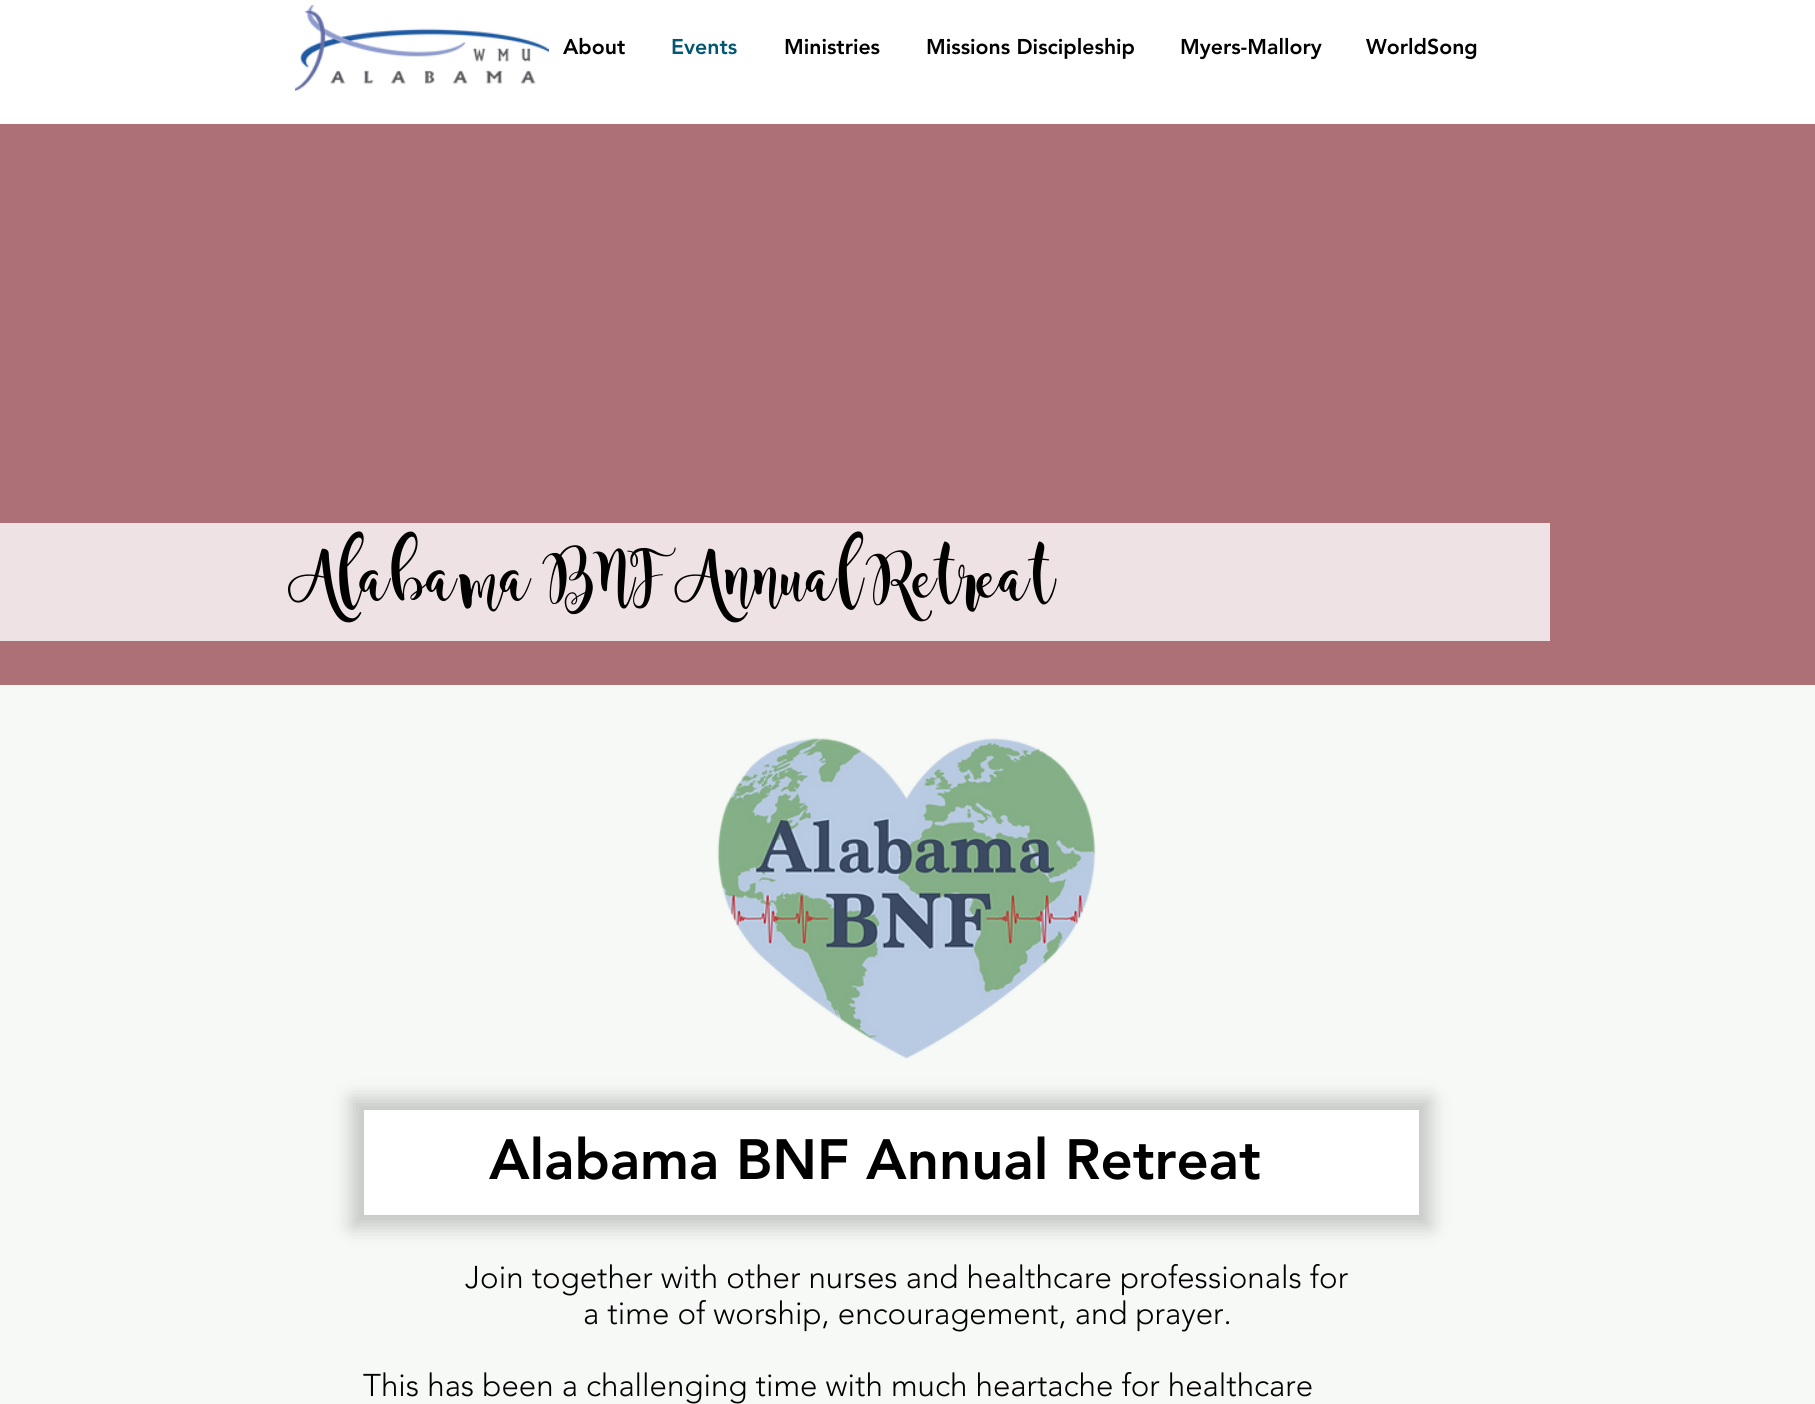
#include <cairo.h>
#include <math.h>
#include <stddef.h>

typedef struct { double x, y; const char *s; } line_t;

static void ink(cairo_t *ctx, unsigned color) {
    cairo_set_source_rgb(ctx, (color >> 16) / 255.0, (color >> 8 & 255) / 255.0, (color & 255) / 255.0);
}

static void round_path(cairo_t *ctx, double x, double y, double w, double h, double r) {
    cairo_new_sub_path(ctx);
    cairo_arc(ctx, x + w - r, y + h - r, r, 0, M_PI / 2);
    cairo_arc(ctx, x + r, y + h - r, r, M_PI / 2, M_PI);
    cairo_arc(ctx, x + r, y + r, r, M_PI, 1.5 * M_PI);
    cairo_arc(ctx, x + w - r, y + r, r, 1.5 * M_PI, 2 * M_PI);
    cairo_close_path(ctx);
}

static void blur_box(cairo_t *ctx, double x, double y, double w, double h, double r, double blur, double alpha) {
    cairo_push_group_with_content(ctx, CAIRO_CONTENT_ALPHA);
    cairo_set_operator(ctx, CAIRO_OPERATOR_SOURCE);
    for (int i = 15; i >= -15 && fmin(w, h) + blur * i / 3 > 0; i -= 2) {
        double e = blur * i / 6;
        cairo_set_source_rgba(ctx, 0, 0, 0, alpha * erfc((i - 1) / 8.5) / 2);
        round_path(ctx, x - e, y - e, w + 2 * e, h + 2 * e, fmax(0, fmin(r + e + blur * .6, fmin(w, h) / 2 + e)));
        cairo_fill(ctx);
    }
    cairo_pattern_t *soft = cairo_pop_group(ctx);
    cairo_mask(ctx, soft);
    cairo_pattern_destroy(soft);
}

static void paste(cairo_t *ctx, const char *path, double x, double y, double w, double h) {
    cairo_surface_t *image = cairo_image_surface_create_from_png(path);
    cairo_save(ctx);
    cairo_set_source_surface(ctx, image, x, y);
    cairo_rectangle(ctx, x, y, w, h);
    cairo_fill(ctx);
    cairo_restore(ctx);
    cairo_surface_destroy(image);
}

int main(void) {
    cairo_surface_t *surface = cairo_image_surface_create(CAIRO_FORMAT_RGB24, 1815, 1404);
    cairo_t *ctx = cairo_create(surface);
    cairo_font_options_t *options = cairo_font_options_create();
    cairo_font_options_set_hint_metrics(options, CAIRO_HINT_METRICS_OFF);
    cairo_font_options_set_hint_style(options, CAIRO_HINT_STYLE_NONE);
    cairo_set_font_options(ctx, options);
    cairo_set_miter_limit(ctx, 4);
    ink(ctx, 0xF6F9F5);
    cairo_paint(ctx);
    ink(ctx, 0xFFFFFF);
    cairo_rectangle(ctx, 0, 0, 1815, 124);
    cairo_fill(ctx);
    paste(ctx, "media/1.png", 295, 5, 254, 86);
    cairo_select_font_face(ctx, "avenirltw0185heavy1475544 Black", CAIRO_FONT_SLANT_NORMAL, CAIRO_FONT_WEIGHT_NORMAL);
    cairo_set_font_size(ctx, 21.25);
    ink(ctx, 0x000000);
    cairo_move_to(ctx, 563, 54);
    cairo_show_text(ctx, "About");
    ink(ctx, 0x035772);
    cairo_move_to(ctx, 671, 54);
    cairo_show_text(ctx, "Events");
    ink(ctx, 0x000000);
    {
        static const line_t items[] = {
            {784, 54, "Ministries"},
            {926, 54, "Missions Discipleship"},
            {1180, 54, "Myers-Mallory"},
            {1366, 54, "WorldSong"},
        };
        for (size_t i = 0; i < sizeof items / sizeof *items; i++) {
            cairo_move_to(ctx, items[i].x, items[i].y);
            cairo_show_text(ctx, items[i].s);
        }
    }
    ink(ctx, 0xAD7076);
    cairo_rectangle(ctx, 0, 124, 1815, 561);
    cairo_fill(ctx);
    ink(ctx, 0xEFE2E4);
    cairo_rectangle(ctx, 0, 523, 1550, 118);
    cairo_fill(ctx);
    cairo_select_font_face(ctx, "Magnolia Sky", CAIRO_FONT_SLANT_NORMAL, CAIRO_FONT_WEIGHT_NORMAL);
    cairo_set_font_size(ctx, 50);
    ink(ctx, 0x000000);
    cairo_move_to(ctx, 295, 598);
    cairo_show_text(ctx, "Alabama BNF Annual Retreat");
    paste(ctx, "media/2.png", 717, 737, 379, 322);
    ink(ctx, 0x000000);
    blur_box(ctx, 351, 1098, 1080, 130, 0, 9.5, 0.2);
    ink(ctx, 0xFFFFFF);
    cairo_rectangle(ctx, 364, 1110, 1055, 105);
    cairo_fill(ctx);
    cairo_select_font_face(ctx, "avenirltw0185heavy1475544 Black", CAIRO_FONT_SLANT_NORMAL, CAIRO_FONT_WEIGHT_NORMAL);
    cairo_set_font_size(ctx, 56.25);
    ink(ctx, 0x000000);
    cairo_move_to(ctx, 489, 1179);
    cairo_show_text(ctx, "Alabama BNF Annual Retreat");
    cairo_select_font_face(ctx, "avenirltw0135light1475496 Light", CAIRO_FONT_SLANT_NORMAL, CAIRO_FONT_WEIGHT_NORMAL);
    cairo_set_font_size(ctx, 31.25);
    {
        static const line_t items[] = {
            {465, 1288, "Join together with other nurses and healthcare professionals for"},
            {583, 1324, "a time of worship, encouragement, and prayer."},
            {363, 1396, "This has been a challenging time with much heartache for healthcare"},
        };
        for (size_t i = 0; i < sizeof items / sizeof *items; i++) {
            cairo_move_to(ctx, items[i].x, items[i].y);
            cairo_show_text(ctx, items[i].s);
        }
    }
    cairo_surface_write_to_png(surface, "image.png");
    cairo_font_options_destroy(options);
    cairo_destroy(ctx);
    cairo_surface_destroy(surface);
    return 0;
}
